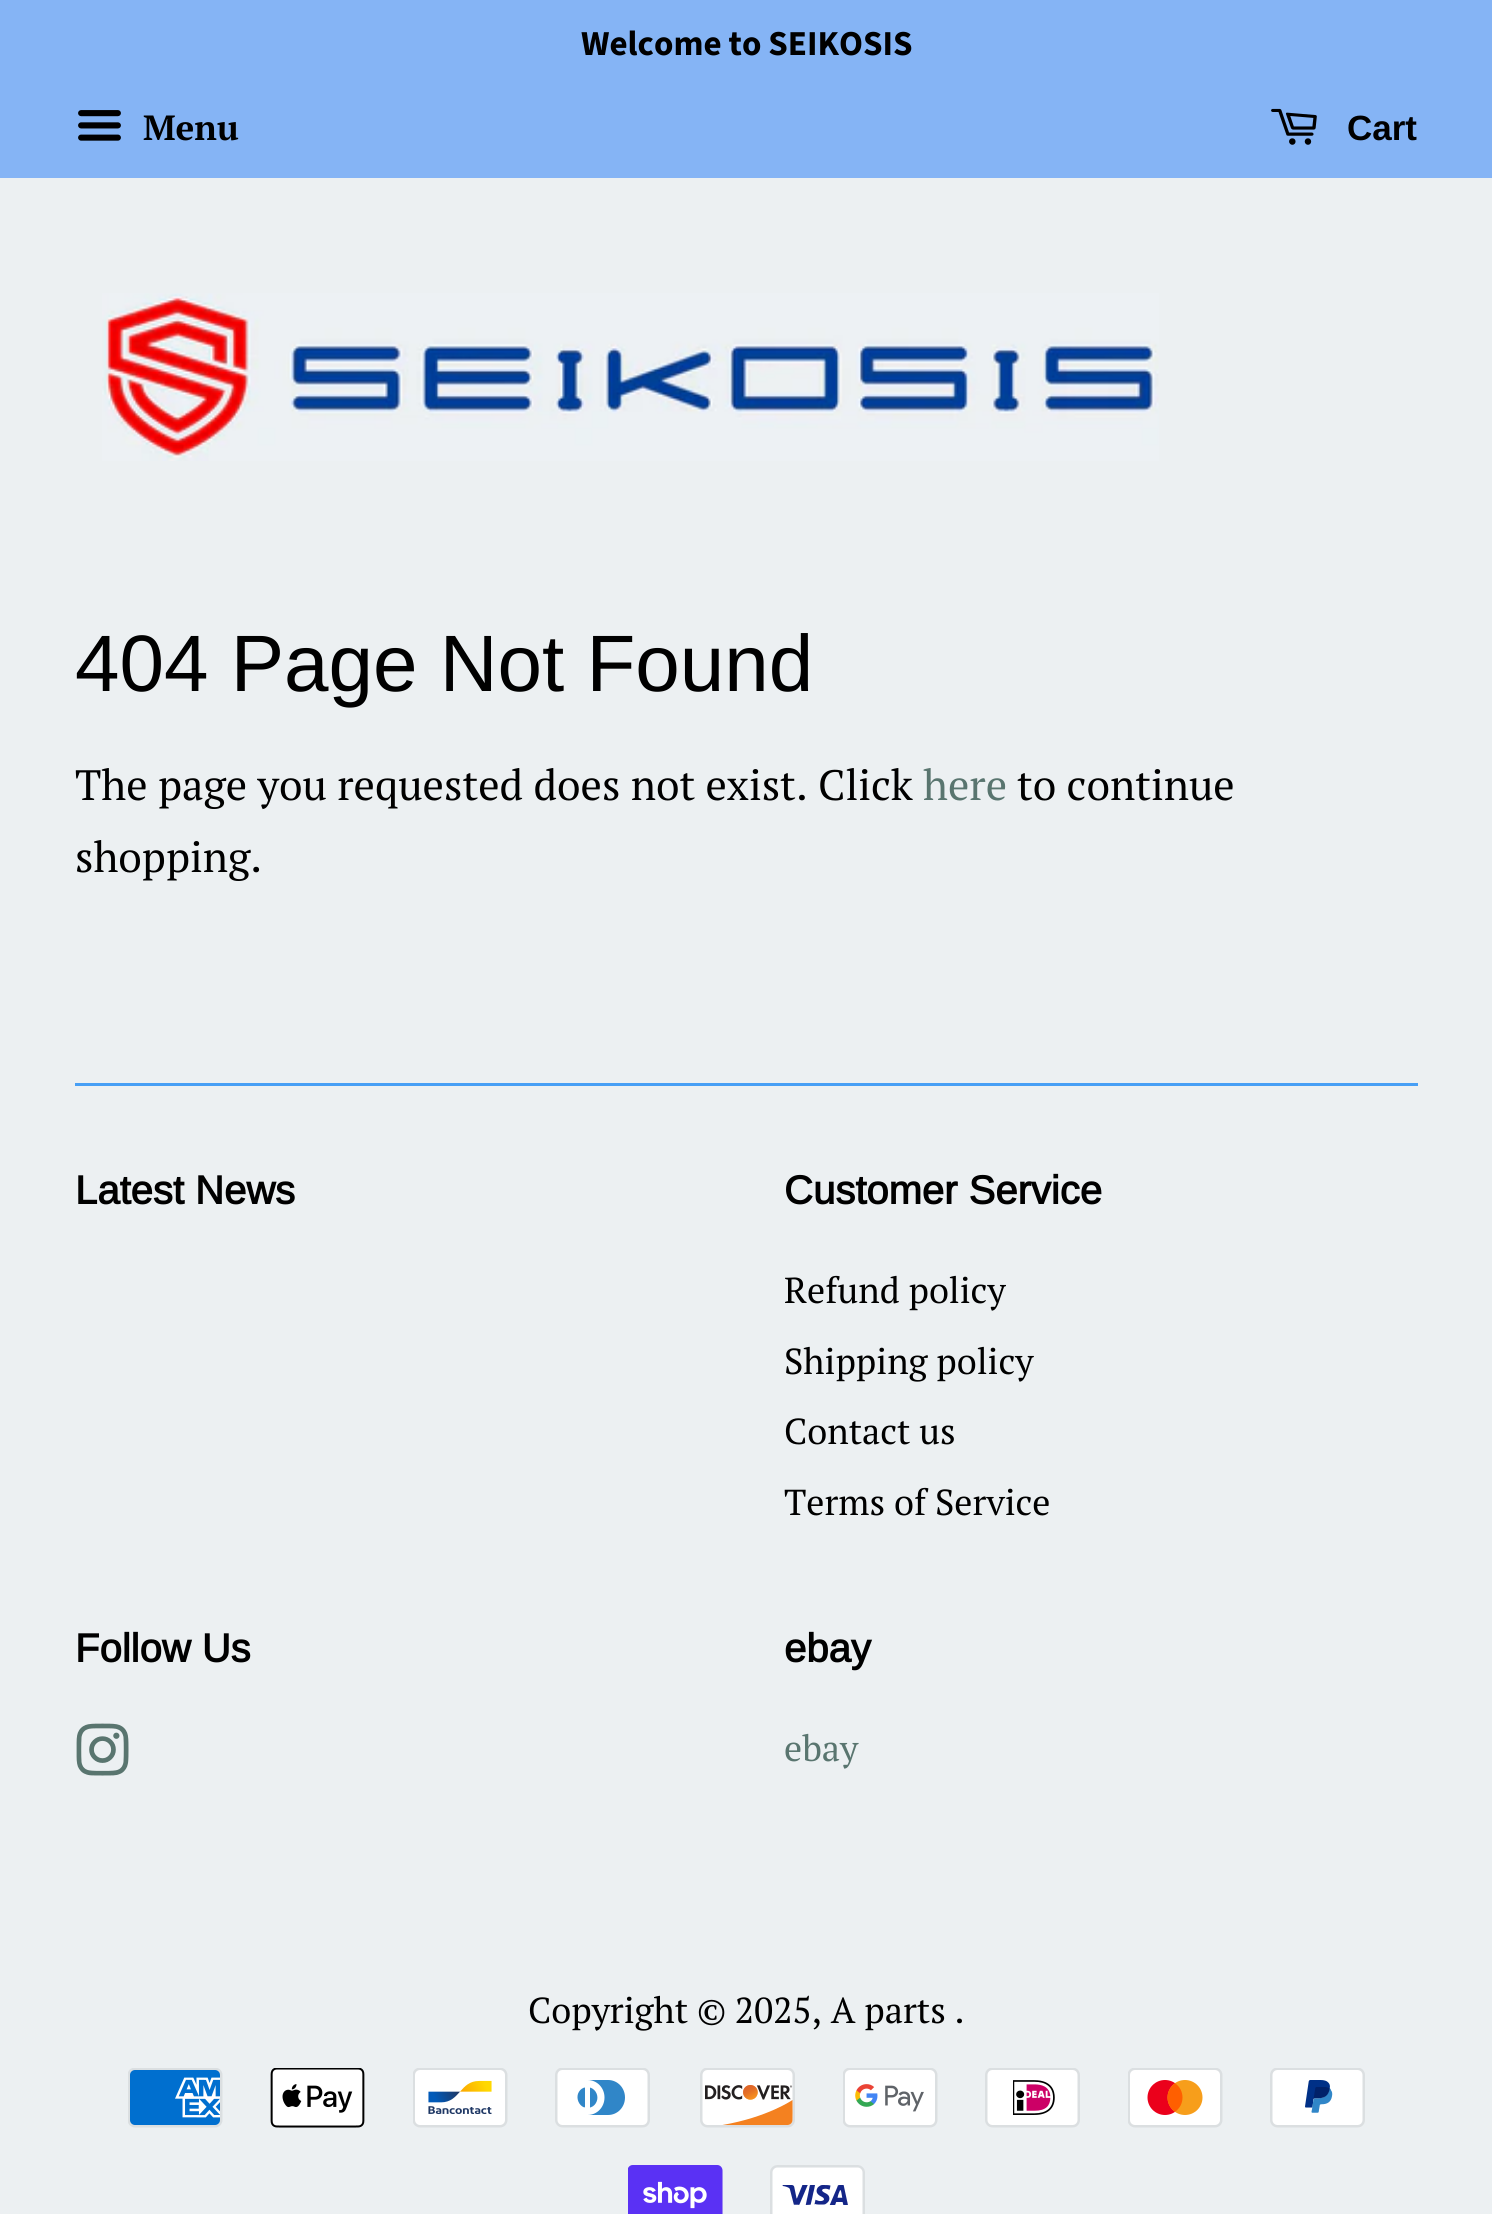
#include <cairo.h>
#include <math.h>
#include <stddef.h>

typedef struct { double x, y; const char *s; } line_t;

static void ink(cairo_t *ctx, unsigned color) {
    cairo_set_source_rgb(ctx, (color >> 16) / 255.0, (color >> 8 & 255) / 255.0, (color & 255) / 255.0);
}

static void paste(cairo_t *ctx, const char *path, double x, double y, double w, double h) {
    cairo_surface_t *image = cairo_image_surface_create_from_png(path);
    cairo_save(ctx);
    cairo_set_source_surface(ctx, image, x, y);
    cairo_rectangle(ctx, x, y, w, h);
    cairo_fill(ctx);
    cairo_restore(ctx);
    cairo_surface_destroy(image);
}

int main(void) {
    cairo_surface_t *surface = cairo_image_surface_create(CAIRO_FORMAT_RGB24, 1492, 2214);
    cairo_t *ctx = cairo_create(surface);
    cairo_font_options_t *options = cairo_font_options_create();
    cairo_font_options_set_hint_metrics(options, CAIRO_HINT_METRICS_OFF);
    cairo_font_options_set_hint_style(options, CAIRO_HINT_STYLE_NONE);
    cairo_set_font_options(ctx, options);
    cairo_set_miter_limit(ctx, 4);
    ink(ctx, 0xECF0F2);
    cairo_paint(ctx);
    ink(ctx, 0x85B4F5);
    cairo_rectangle(ctx, 0, 0, 1492, 178);
    cairo_fill(ctx);
    cairo_select_font_face(ctx, "Source Sans Pro", CAIRO_FONT_SLANT_NORMAL, CAIRO_FONT_WEIGHT_BOLD);
    cairo_set_font_size(ctx, 35);
    ink(ctx, 0x000000);
    cairo_move_to(ctx, 581, 55);
    cairo_show_text(ctx, "Welcome to SEIKOSIS");
    paste(ctx, "media/1.png", 78, 110, 43, 31);
    cairo_select_font_face(ctx, "PT Serif", CAIRO_FONT_SLANT_NORMAL, CAIRO_FONT_WEIGHT_BOLD);
    cairo_move_to(ctx, 143, 140);
    cairo_show_text(ctx, "Menu");
    paste(ctx, "media/2.png", 1271, 108, 46, 37);
    cairo_select_font_face(ctx, "Liberation Sans", CAIRO_FONT_SLANT_NORMAL, CAIRO_FONT_WEIGHT_BOLD);
    cairo_move_to(ctx, 1347, 140);
    cairo_show_text(ctx, "Cart");
    paste(ctx, "media/3.png", 102, 293, 1057, 168);
    cairo_select_font_face(ctx, "Arimo", CAIRO_FONT_SLANT_NORMAL, CAIRO_FONT_WEIGHT_NORMAL);
    cairo_set_font_size(ctx, 80);
    cairo_move_to(ctx, 75, 691);
    cairo_show_text(ctx, "404 Page Not Found");
    cairo_select_font_face(ctx, "PT Serif", CAIRO_FONT_SLANT_NORMAL, CAIRO_FONT_WEIGHT_NORMAL);
    cairo_set_font_size(ctx, 42.5);
    cairo_move_to(ctx, 75, 800);
    cairo_show_text(ctx, "The page you requested does not exist. Click");
    ink(ctx, 0x59756F);
    cairo_move_to(ctx, 923, 800);
    cairo_show_text(ctx, "here");
    ink(ctx, 0x000000);
    cairo_move_to(ctx, 1017, 800);
    cairo_show_text(ctx, "to continue");
    cairo_move_to(ctx, 75, 872);
    cairo_show_text(ctx, "shopping.");
    ink(ctx, 0x479FF5);
    cairo_rectangle(ctx, 75, 1083, 1343, 3);
    cairo_fill(ctx);
    cairo_select_font_face(ctx, "Arimo", CAIRO_FONT_SLANT_NORMAL, CAIRO_FONT_WEIGHT_BOLD);
    cairo_set_font_size(ctx, 40);
    ink(ctx, 0x000000);
    cairo_move_to(ctx, 75, 1204);
    cairo_show_text(ctx, "Latest News");
    cairo_move_to(ctx, 784, 1204);
    cairo_show_text(ctx, "Customer Service");
    cairo_select_font_face(ctx, "PT Serif", CAIRO_FONT_SLANT_NORMAL, CAIRO_FONT_WEIGHT_NORMAL);
    cairo_set_font_size(ctx, 36.1);
    {
        static const line_t items[] = {
            {784, 1303, "Refund policy"},
            {784, 1374, "Shipping policy"},
            {784, 1444, "Contact us"},
            {784, 1515, "Terms of Service"},
        };
        for (size_t i = 0; i < sizeof items / sizeof *items; i++) {
            cairo_move_to(ctx, items[i].x, items[i].y);
            cairo_show_text(ctx, items[i].s);
        }
    }
    cairo_select_font_face(ctx, "Arimo", CAIRO_FONT_SLANT_NORMAL, CAIRO_FONT_WEIGHT_BOLD);
    cairo_set_font_size(ctx, 40);
    cairo_move_to(ctx, 75, 1662);
    cairo_show_text(ctx, "Follow Us");
    paste(ctx, "media/4.png", 76, 1723, 53, 53);
    cairo_move_to(ctx, 784, 1662);
    cairo_show_text(ctx, "ebay");
    cairo_select_font_face(ctx, "PT Serif", CAIRO_FONT_SLANT_NORMAL, CAIRO_FONT_WEIGHT_NORMAL);
    cairo_set_font_size(ctx, 36.1);
    ink(ctx, 0x59756F);
    cairo_move_to(ctx, 784, 1761);
    cairo_show_text(ctx, "ebay");
    ink(ctx, 0x000000);
    cairo_move_to(ctx, 528, 2023);
    cairo_show_text(ctx, "Copyright © 2025, A parts .");
    paste(ctx, "media/5.png", 128, 2068, 95, 60);
    paste(ctx, "media/6.png", 270, 2068, 95, 60);
    paste(ctx, "media/7.png", 413, 2068, 95, 60);
    paste(ctx, "media/8.png", 555, 2068, 95, 60);
    paste(ctx, "media/9.png", 700, 2068, 95, 60);
    paste(ctx, "media/10.png", 843, 2068, 95, 60);
    paste(ctx, "media/11.png", 985, 2068, 95, 60);
    paste(ctx, "media/12.png", 1128, 2068, 95, 60);
    paste(ctx, "media/13.png", 1270, 2068, 95, 60);
    paste(ctx, "media/14.png", 628, 2165, 95, 49);
    paste(ctx, "media/15.png", 770, 2165, 95, 49);
    cairo_surface_write_to_png(surface, "image.png");
    cairo_font_options_destroy(options);
    cairo_destroy(ctx);
    cairo_surface_destroy(surface);
    return 0;
}
